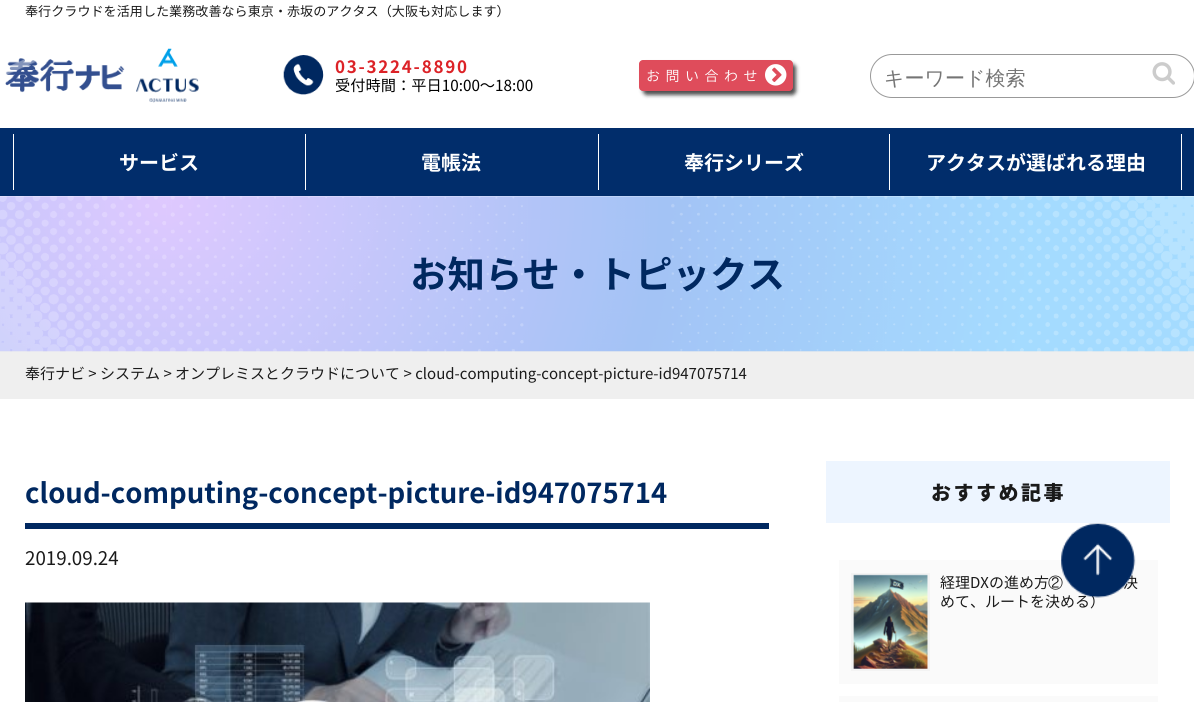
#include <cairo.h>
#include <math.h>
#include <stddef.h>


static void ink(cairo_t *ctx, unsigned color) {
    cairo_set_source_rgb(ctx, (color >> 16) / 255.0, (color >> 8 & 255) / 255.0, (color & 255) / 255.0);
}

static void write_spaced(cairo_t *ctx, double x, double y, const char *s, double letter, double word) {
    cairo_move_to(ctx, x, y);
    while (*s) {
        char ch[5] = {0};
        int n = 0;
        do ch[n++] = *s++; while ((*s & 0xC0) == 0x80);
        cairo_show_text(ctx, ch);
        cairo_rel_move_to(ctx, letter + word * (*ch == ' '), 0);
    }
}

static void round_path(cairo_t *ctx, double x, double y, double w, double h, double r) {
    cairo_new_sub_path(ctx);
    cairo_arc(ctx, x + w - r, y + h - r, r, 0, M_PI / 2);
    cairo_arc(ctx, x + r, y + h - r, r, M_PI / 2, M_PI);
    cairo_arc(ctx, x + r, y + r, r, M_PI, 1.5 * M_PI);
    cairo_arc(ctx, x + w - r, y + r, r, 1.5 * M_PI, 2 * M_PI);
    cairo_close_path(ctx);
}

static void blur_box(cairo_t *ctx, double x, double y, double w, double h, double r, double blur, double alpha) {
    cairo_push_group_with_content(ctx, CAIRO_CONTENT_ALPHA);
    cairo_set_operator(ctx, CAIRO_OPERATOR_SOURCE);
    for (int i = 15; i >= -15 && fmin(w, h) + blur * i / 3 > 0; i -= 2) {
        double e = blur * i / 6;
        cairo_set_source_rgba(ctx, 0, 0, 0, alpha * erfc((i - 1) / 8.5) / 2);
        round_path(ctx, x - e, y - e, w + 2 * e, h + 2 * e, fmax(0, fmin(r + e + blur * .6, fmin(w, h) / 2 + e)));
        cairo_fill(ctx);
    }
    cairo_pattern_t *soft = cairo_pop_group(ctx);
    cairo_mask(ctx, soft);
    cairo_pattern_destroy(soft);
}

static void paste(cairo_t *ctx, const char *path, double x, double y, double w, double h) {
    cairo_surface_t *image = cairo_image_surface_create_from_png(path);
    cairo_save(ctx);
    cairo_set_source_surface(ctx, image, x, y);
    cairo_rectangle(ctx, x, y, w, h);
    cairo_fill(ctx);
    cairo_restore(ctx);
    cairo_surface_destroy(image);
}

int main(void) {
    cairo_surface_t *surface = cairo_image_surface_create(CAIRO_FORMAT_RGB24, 1194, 702);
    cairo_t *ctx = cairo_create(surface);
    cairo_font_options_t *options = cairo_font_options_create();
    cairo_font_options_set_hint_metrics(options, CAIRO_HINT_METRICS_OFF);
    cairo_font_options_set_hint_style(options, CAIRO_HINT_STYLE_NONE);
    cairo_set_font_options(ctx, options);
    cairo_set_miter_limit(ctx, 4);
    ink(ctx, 0xFFFFFF);
    cairo_paint(ctx);
    cairo_select_font_face(ctx, "Noto Sans JP", CAIRO_FONT_SLANT_NORMAL, CAIRO_FONT_WEIGHT_NORMAL);
    cairo_set_font_size(ctx, 13.1);
    ink(ctx, 0x1A1A1A);
    cairo_move_to(ctx, 25, 16);
    cairo_show_text(ctx, "奉行クラウドを活用した業務改善なら東京・赤坂のアクタス（大阪も対応します）");
    paste(ctx, "media/1.png", 5, 58, 120, 35);
    paste(ctx, "media/2.png", 136, 48, 63, 55);
    paste(ctx, "media/3.png", 283, 55, 41, 40);
    cairo_select_font_face(ctx, "Noto Sans JP", CAIRO_FONT_SLANT_NORMAL, CAIRO_FONT_WEIGHT_BOLD);
    cairo_set_font_size(ctx, 17);
    ink(ctx, 0xDC2227);
    write_spaced(ctx, 335, 73, "03-3224-8890", 1.75, 0);
    cairo_select_font_face(ctx, "Noto Sans JP", CAIRO_FONT_SLANT_NORMAL, CAIRO_FONT_WEIGHT_NORMAL);
    cairo_set_font_size(ctx, 15.25);
    ink(ctx, 0x000000);
    cairo_move_to(ctx, 335, 91);
    cairo_show_text(ctx, "受付時間：平日10:00〜18:00");
    ink(ctx, 0x000000);
    blur_box(ctx, 643, 64, 153, 31, 4, 2, 0.7);
    ink(ctx, 0xDF4C5B);
    round_path(ctx, 639, 60, 154, 31, 4);
    cairo_fill(ctx);
    cairo_select_font_face(ctx, "Noto Sans JP Light", CAIRO_FONT_SLANT_NORMAL, CAIRO_FONT_WEIGHT_NORMAL);
    cairo_set_font_size(ctx, 14);
    ink(ctx, 0xFFFFFF);
    write_spaced(ctx, 646, 81, "お問い合わせ", 5.5, 0);
    paste(ctx, "media/4.png", 765, 64, 22, 22);
    round_path(ctx, 870.5, 54.5, 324, 43, 21.5);
    ink(ctx, 0x999999);
    cairo_set_line_width(ctx, 1);
    cairo_stroke(ctx);
    cairo_select_font_face(ctx, "WenQuanYi Zen Hei Medium", CAIRO_FONT_SLANT_NORMAL, CAIRO_FONT_WEIGHT_NORMAL);
    cairo_set_font_size(ctx, 20);
    ink(ctx, 0x757575);
    cairo_move_to(ctx, 884, 85);
    cairo_show_text(ctx, "キーワード検索");
    paste(ctx, "media/5.png", 1152, 62, 23, 23);
    ink(ctx, 0x012D6B);
    cairo_rectangle(ctx, 0, 128, 1194, 68);
    cairo_fill(ctx);
    ink(ctx, 0xFFFFFF);
    cairo_rectangle(ctx, 13, 134, 1, 56);
    cairo_fill(ctx);
    cairo_select_font_face(ctx, "Noto Sans JP", CAIRO_FONT_SLANT_NORMAL, CAIRO_FONT_WEIGHT_BOLD);
    cairo_move_to(ctx, 119, 170);
    cairo_show_text(ctx, "サービス");
    cairo_rectangle(ctx, 305, 134, 1, 56);
    cairo_fill(ctx);
    cairo_move_to(ctx, 421, 170);
    cairo_show_text(ctx, "電帳法");
    cairo_rectangle(ctx, 598, 134, 1, 56);
    cairo_fill(ctx);
    cairo_move_to(ctx, 684, 170);
    cairo_show_text(ctx, "奉行シリーズ");
    cairo_rectangle(ctx, 1181, 134, 1, 56);
    cairo_fill(ctx);
    cairo_rectangle(ctx, 889, 134, 1, 56);
    cairo_fill(ctx);
    cairo_move_to(ctx, 926, 170);
    cairo_show_text(ctx, "アクタスが選ばれる理由");
    ink(ctx, 0xEFEFEF);
    cairo_rectangle(ctx, 0, 351, 1194, 48);
    cairo_fill(ctx);
    paste(ctx, "media/6.png", 0, 196, 1194, 156);
    cairo_set_font_size(ctx, 37.5);
    ink(ctx, 0x002860);
    cairo_move_to(ctx, 410, 288);
    cairo_show_text(ctx, "お知らせ・トピックス");
    cairo_select_font_face(ctx, "Noto Sans JP", CAIRO_FONT_SLANT_NORMAL, CAIRO_FONT_WEIGHT_NORMAL);
    cairo_set_font_size(ctx, 15);
    ink(ctx, 0x1A1A1A);
    cairo_move_to(ctx, 25, 379);
    cairo_show_text(ctx, "奉行ナビ > システム > オンプレミスとクラウドについて > cloud-computing-concept-picture-id947075714");
    ink(ctx, 0x002860);
    cairo_rectangle(ctx, 25, 523, 744, 6);
    cairo_fill(ctx);
    cairo_select_font_face(ctx, "Noto Sans JP", CAIRO_FONT_SLANT_NORMAL, CAIRO_FONT_WEIGHT_BOLD);
    cairo_set_font_size(ctx, 27.5);
    cairo_move_to(ctx, 25, 503);
    cairo_show_text(ctx, "cloud-computing-concept-picture-id947075714");
    cairo_select_font_face(ctx, "Noto Sans JP", CAIRO_FONT_SLANT_NORMAL, CAIRO_FONT_WEIGHT_NORMAL);
    cairo_set_font_size(ctx, 18.75);
    ink(ctx, 0x1A1A1A);
    cairo_move_to(ctx, 25, 565);
    cairo_show_text(ctx, "2019.09.24");
    paste(ctx, "media/7.png", 25, 602, 625, 100);
    ink(ctx, 0xEDF5FF);
    cairo_rectangle(ctx, 826, 461, 344, 62);
    cairo_fill(ctx);
    cairo_select_font_face(ctx, "Noto Sans JP Black", CAIRO_FONT_SLANT_NORMAL, CAIRO_FONT_WEIGHT_NORMAL);
    cairo_set_font_size(ctx, 20);
    ink(ctx, 0x1A1A1A);
    write_spaced(ctx, 931, 500, "おすすめ記事", 2.5, 0);
    ink(ctx, 0xFAFAFA);
    cairo_rectangle(ctx, 839, 560, 319, 124);
    cairo_fill(ctx);
    cairo_rectangle(ctx, 852.5, 574.5, 76, 95);
    ink(ctx, 0xF3F3F3);
    cairo_set_line_width(ctx, 3);
    cairo_stroke(ctx);
    paste(ctx, "media/8.png", 853, 574, 75, 95);
    cairo_select_font_face(ctx, "Noto Sans JP", CAIRO_FONT_SLANT_NORMAL, CAIRO_FONT_WEIGHT_NORMAL);
    cairo_set_font_size(ctx, 15);
    ink(ctx, 0x1A1A1A);
    cairo_move_to(ctx, 940, 588);
    cairo_show_text(ctx, "経理DXの進め方");
    cairo_select_font_face(ctx, "WenQuanYi Zen Hei Medium", CAIRO_FONT_SLANT_NORMAL, CAIRO_FONT_WEIGHT_NORMAL);
    cairo_move_to(ctx, 1048, 588);
    cairo_show_text(ctx, "②");
    cairo_select_font_face(ctx, "Noto Sans JP", CAIRO_FONT_SLANT_NORMAL, CAIRO_FONT_WEIGHT_NORMAL);
    cairo_move_to(ctx, 1123, 588);
    cairo_show_text(ctx, "決");
    cairo_move_to(ctx, 940, 607);
    cairo_show_text(ctx, "めて、ルートを決める）");
    ink(ctx, 0xFAFAFA);
    cairo_rectangle(ctx, 839, 696, 319, 6);
    cairo_fill(ctx);
    paste(ctx, "media/9.png", 1061, 523, 75, 75);
    cairo_surface_write_to_png(surface, "image.png");
    cairo_font_options_destroy(options);
    cairo_destroy(ctx);
    cairo_surface_destroy(surface);
    return 0;
}
